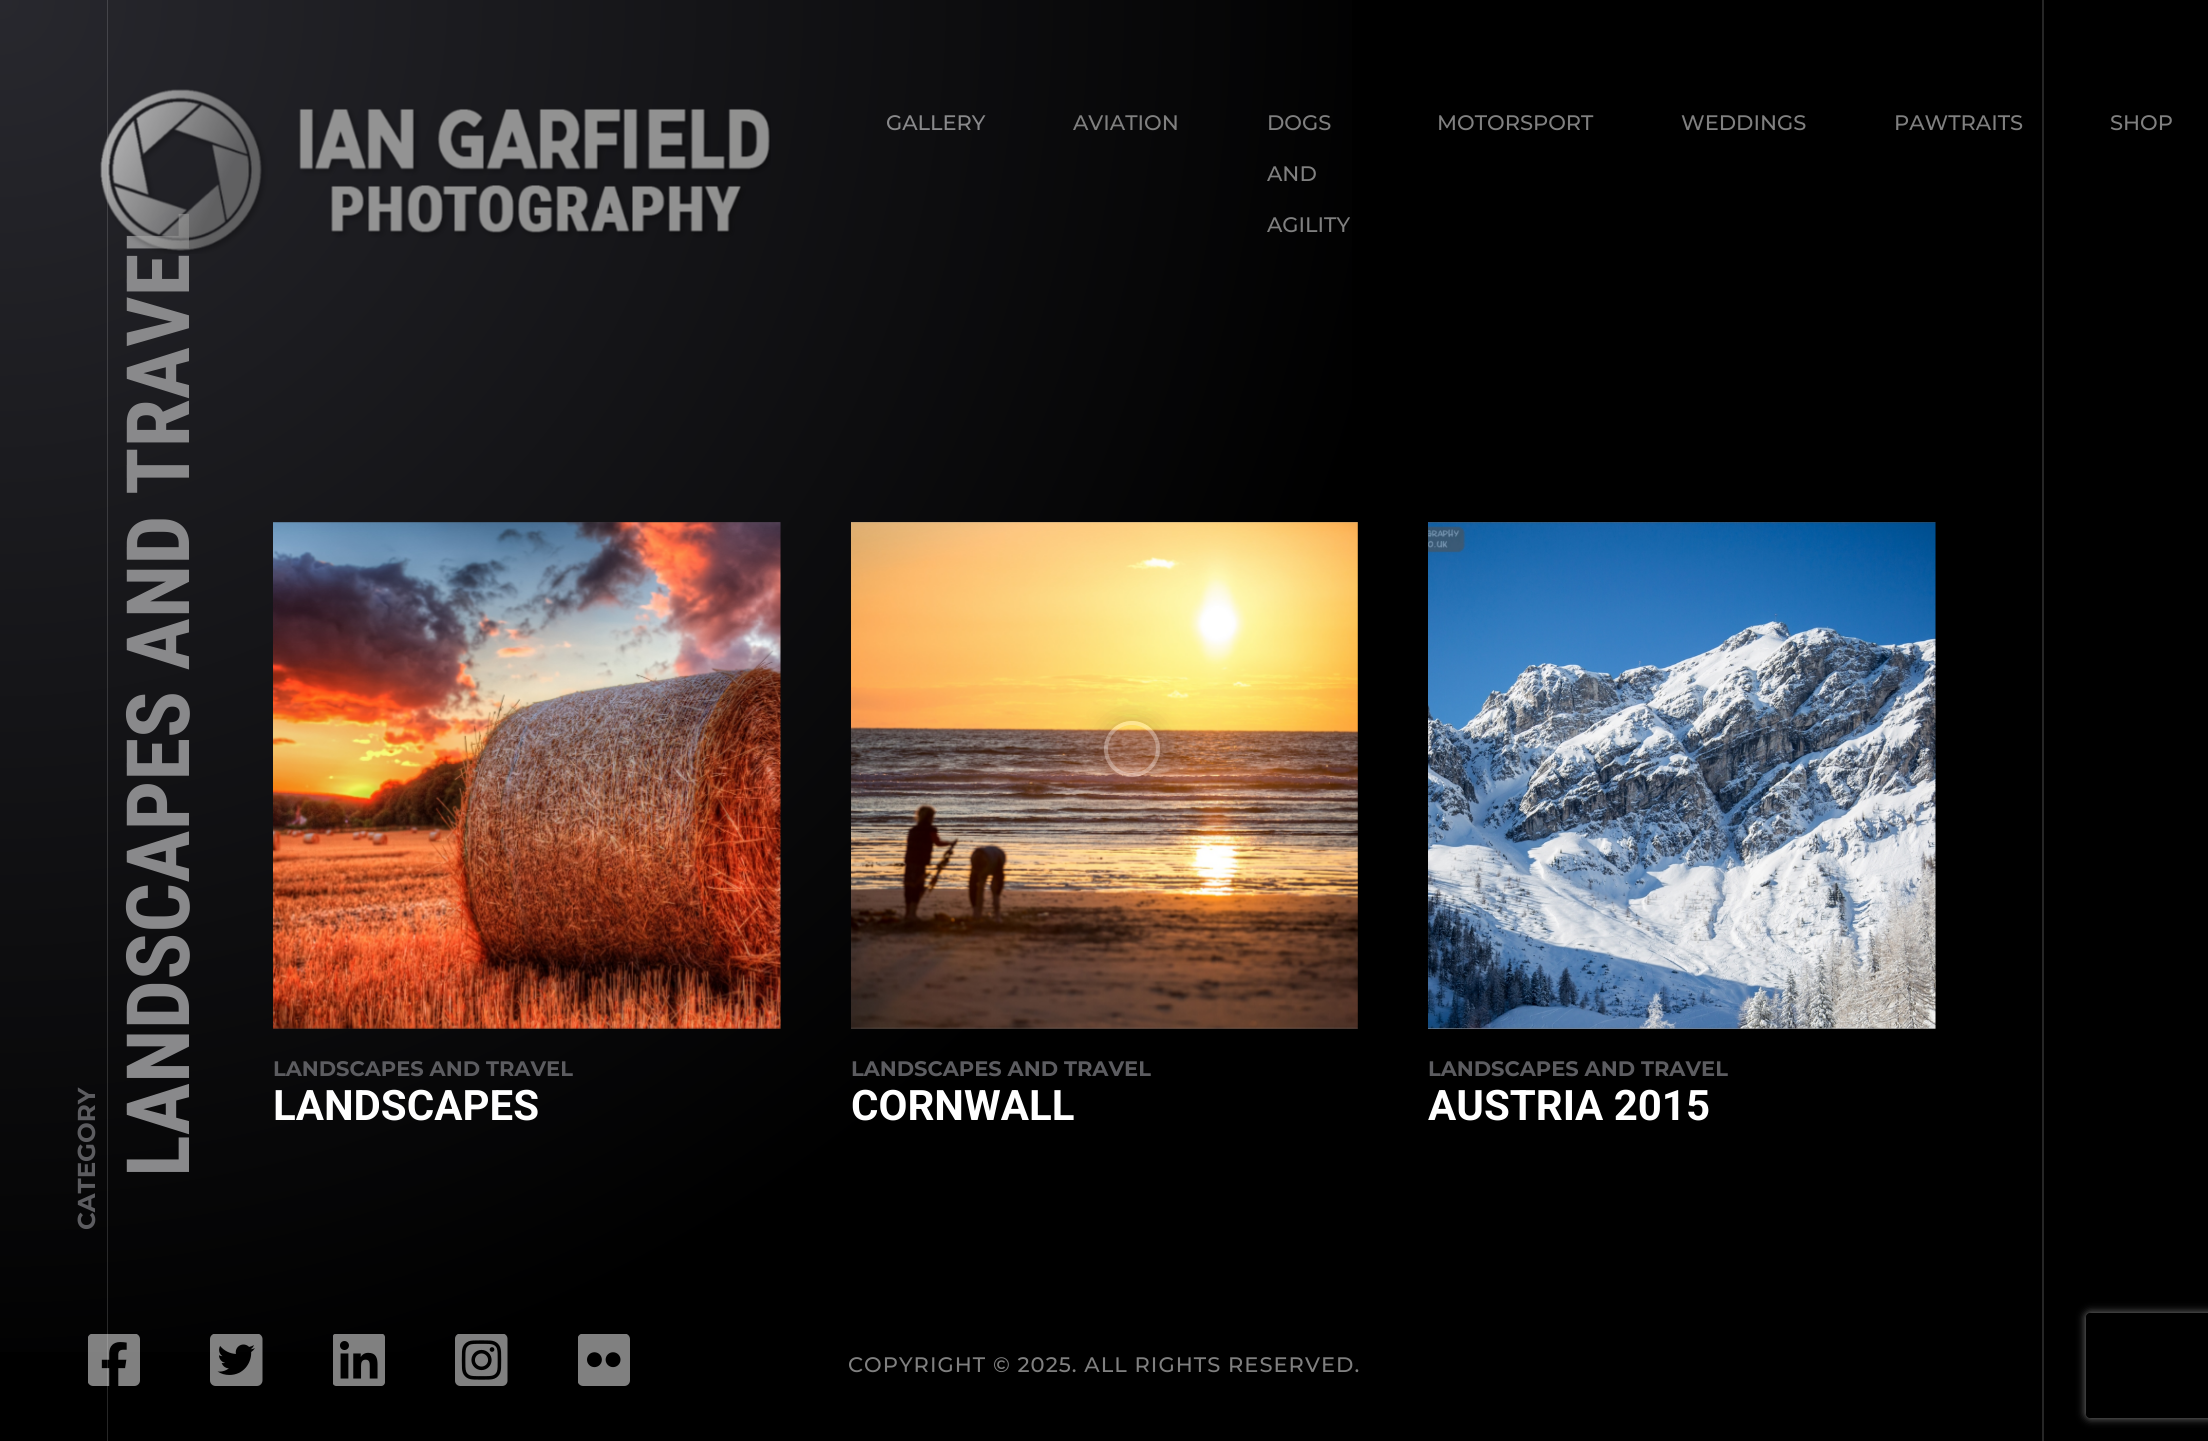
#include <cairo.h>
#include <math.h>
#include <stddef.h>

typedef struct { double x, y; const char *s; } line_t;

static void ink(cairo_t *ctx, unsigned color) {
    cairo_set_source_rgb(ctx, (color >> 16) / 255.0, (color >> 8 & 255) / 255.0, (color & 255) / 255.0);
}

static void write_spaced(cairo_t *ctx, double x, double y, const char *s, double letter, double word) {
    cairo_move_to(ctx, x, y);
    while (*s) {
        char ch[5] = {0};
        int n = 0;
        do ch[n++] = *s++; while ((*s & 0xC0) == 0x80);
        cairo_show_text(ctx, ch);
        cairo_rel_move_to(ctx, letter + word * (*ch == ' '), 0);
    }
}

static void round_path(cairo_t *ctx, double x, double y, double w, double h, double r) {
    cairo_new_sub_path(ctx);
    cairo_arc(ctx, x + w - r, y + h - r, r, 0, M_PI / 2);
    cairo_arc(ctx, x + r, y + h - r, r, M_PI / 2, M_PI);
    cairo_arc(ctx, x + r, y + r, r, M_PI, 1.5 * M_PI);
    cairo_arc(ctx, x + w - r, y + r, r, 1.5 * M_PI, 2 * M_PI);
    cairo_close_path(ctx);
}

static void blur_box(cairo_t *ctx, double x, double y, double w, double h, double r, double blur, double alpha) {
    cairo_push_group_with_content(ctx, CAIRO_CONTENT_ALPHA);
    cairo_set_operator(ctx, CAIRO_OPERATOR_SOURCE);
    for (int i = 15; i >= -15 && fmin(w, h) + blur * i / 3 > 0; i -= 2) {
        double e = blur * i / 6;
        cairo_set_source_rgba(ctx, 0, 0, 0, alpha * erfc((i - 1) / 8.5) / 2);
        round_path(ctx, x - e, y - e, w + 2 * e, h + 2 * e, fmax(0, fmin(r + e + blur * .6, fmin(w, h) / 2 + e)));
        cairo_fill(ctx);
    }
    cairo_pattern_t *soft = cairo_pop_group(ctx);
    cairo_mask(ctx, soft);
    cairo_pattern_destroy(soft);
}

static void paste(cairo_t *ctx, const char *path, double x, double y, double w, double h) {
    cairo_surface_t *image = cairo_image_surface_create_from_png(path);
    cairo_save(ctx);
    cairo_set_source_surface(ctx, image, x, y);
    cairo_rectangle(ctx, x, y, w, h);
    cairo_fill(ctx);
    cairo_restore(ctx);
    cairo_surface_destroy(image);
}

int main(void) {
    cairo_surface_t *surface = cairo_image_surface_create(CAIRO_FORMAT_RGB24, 2208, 1441);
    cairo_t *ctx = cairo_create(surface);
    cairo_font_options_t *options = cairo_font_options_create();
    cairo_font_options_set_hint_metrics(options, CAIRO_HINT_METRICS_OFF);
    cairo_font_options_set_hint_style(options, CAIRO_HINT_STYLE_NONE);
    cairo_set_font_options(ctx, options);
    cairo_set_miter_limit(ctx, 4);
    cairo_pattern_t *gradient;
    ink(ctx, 0x000000);
    cairo_paint(ctx);
    gradient = cairo_pattern_create_radial(0, 0, 0, 0, 0, 2039);
    cairo_pattern_add_color_stop_rgba(gradient, 0, 0.157, 0.157, 0.18, 1);
    cairo_pattern_add_color_stop_rgba(gradient, 0.7, 0, 0, 0, 1);
    cairo_set_source(ctx, gradient);
    cairo_pattern_destroy(gradient);
    cairo_rectangle(ctx, 0, 0, 1352, 1352);
    cairo_fill(ctx);
    ink(ctx, 0x262626);
    cairo_rectangle(ctx, 2042, 0, 2, 1441);
    cairo_fill(ctx);
    paste(ctx, "media/5.png", 88, 1334, 52, 52);
    cairo_set_source_rgba(ctx, 1, 1, 1, 0.15);
    cairo_rectangle(ctx, 107, 0, 1, 1441);
    cairo_fill(ctx);
    cairo_select_font_face(ctx, "Roboto Condensed", CAIRO_FONT_SLANT_NORMAL, CAIRO_FONT_WEIGHT_BOLD);
    cairo_set_font_size(ctx, 87.5);
    ink(ctx, 0x89898B);
    cairo_save(ctx);
    cairo_translate(ctx, 189, 1177);
    cairo_rotate(ctx, -90 * M_PI / 180);
    cairo_move_to(ctx, 0, 0);
    cairo_show_text(ctx, "LANDSCAPES AND TRAVEL");
    cairo_restore(ctx);
    paste(ctx, "media/1.png", 100, 89, 671, 165);
    cairo_select_font_face(ctx, "Montserrat Medium", CAIRO_FONT_SLANT_NORMAL, CAIRO_FONT_WEIGHT_NORMAL);
    cairo_set_font_size(ctx, 21);
    cairo_move_to(ctx, 886, 130);
    cairo_show_text(ctx, "GALLERY");
    ink(ctx, 0x808080);
    {
        static const line_t items[] = {
            {1073, 130, "AVIATION"},
            {1267, 130, "DOGS"},
            {1267, 181, "AND"},
            {1267, 232, "AGILITY"},
            {1437, 130, "MOTORSPORT"},
            {1681, 130, "WEDDINGS"},
            {1894, 130, "PAWTRAITS"},
            {2110, 130, "SHOP"},
        };
        for (size_t i = 0; i < sizeof items / sizeof *items; i++) {
            cairo_move_to(ctx, items[i].x, items[i].y);
            cairo_show_text(ctx, items[i].s);
        }
    }
    cairo_select_font_face(ctx, "Montserrat", CAIRO_FONT_SLANT_NORMAL, CAIRO_FONT_WEIGHT_BOLD);
    cairo_set_font_size(ctx, 24.5);
    ink(ctx, 0x5C5C60);
    cairo_save(ctx);
    cairo_translate(ctx, 95, 1230);
    cairo_rotate(ctx, -90 * M_PI / 180);
    cairo_move_to(ctx, 0, 0);
    cairo_show_text(ctx, "CATEGORY");
    cairo_restore(ctx);
    paste(ctx, "media/3.png", 851, 522, 507, 507);
    cairo_save(ctx);
    cairo_set_fill_rule(ctx, CAIRO_FILL_RULE_EVEN_ODD);
    cairo_new_path(ctx);
    cairo_move_to(ctx, 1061, 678);
    cairo_line_to(ctx, 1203, 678);
    cairo_line_to(ctx, 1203, 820);
    cairo_line_to(ctx, 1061, 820);
    cairo_close_path(ctx);
    cairo_move_to(ctx, 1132, 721);
    cairo_curve_to(ctx, 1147.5, 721, 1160, 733.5, 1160, 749);
    cairo_curve_to(ctx, 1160, 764.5, 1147.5, 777, 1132, 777);
    cairo_curve_to(ctx, 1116.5, 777, 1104, 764.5, 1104, 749);
    cairo_curve_to(ctx, 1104, 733.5, 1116.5, 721, 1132, 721);
    cairo_close_path(ctx);
    cairo_clip(ctx);
    ink(ctx, 0x000000);
    blur_box(ctx, 1104, 721, 56, 56, 28, 14, 0.2);
    cairo_restore(ctx);
    cairo_arc(ctx, 1132, 749, 26, 0, 2 * M_PI);
    cairo_set_source_rgba(ctx, 1, 1, 1, 0.3);
    cairo_set_line_width(ctx, 4);
    cairo_stroke(ctx);
    paste(ctx, "media/2.png", 273, 522, 508, 507);
    cairo_set_font_size(ctx, 21);
    ink(ctx, 0x5C5C60);
    cairo_move_to(ctx, 273, 1076);
    cairo_show_text(ctx, "LANDSCAPES AND TRAVEL");
    cairo_select_font_face(ctx, "Roboto", CAIRO_FONT_SLANT_NORMAL, CAIRO_FONT_WEIGHT_BOLD);
    cairo_set_font_size(ctx, 42);
    ink(ctx, 0xFFFFFF);
    cairo_move_to(ctx, 273, 1120);
    cairo_show_text(ctx, "LANDSCAPES");
    cairo_select_font_face(ctx, "Montserrat", CAIRO_FONT_SLANT_NORMAL, CAIRO_FONT_WEIGHT_BOLD);
    cairo_set_font_size(ctx, 21);
    ink(ctx, 0x5C5C60);
    cairo_move_to(ctx, 851, 1076);
    cairo_show_text(ctx, "LANDSCAPES AND TRAVEL");
    cairo_select_font_face(ctx, "Roboto", CAIRO_FONT_SLANT_NORMAL, CAIRO_FONT_WEIGHT_BOLD);
    cairo_set_font_size(ctx, 42);
    ink(ctx, 0xFFFFFF);
    cairo_move_to(ctx, 851, 1120);
    cairo_show_text(ctx, "CORNWALL");
    paste(ctx, "media/4.png", 1428, 522, 508, 507);
    cairo_select_font_face(ctx, "Montserrat", CAIRO_FONT_SLANT_NORMAL, CAIRO_FONT_WEIGHT_BOLD);
    cairo_set_font_size(ctx, 21);
    ink(ctx, 0x5C5C60);
    cairo_move_to(ctx, 1428, 1076);
    cairo_show_text(ctx, "LANDSCAPES AND TRAVEL");
    cairo_select_font_face(ctx, "Roboto", CAIRO_FONT_SLANT_NORMAL, CAIRO_FONT_WEIGHT_BOLD);
    cairo_set_font_size(ctx, 42);
    ink(ctx, 0xFFFFFF);
    cairo_move_to(ctx, 1428, 1120);
    cairo_show_text(ctx, "AUSTRIA 2015");
    paste(ctx, "media/6.png", 210, 1334, 53, 52);
    paste(ctx, "media/7.png", 333, 1334, 52, 52);
    paste(ctx, "media/8.png", 455, 1334, 53, 52);
    paste(ctx, "media/9.png", 578, 1334, 52, 52);
    cairo_select_font_face(ctx, "Montserrat Medium", CAIRO_FONT_SLANT_NORMAL, CAIRO_FONT_WEIGHT_NORMAL);
    cairo_set_font_size(ctx, 21);
    ink(ctx, 0x808080);
    write_spaced(ctx, 848, 1372, "COPYRIGHT © 2025. ALL RIGHTS RESERVED.", 1.05, 0);
    cairo_save(ctx);
    cairo_set_fill_rule(ctx, CAIRO_FILL_RULE_EVEN_ODD);
    cairo_new_path(ctx);
    cairo_move_to(ctx, 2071, 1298);
    cairo_line_to(ctx, 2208, 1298);
    cairo_line_to(ctx, 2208, 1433);
    cairo_line_to(ctx, 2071, 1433);
    cairo_close_path(ctx);
    cairo_move_to(ctx, 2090, 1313);
    cairo_line_to(ctx, 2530, 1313);
    cairo_curve_to(ctx, 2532, 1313, 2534, 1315, 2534, 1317);
    cairo_line_to(ctx, 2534, 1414);
    cairo_curve_to(ctx, 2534, 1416, 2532, 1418, 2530, 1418);
    cairo_line_to(ctx, 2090, 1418);
    cairo_curve_to(ctx, 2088, 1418, 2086, 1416, 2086, 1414);
    cairo_line_to(ctx, 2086, 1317);
    cairo_curve_to(ctx, 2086, 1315, 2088, 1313, 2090, 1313);
    cairo_close_path(ctx);
    cairo_clip(ctx);
    ink(ctx, 0x808080);
    blur_box(ctx, 2086, 1313, 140, 105, 4, 4.5, 1);
    cairo_restore(ctx);
    cairo_surface_write_to_png(surface, "image.png");
    cairo_font_options_destroy(options);
    cairo_destroy(ctx);
    cairo_surface_destroy(surface);
    return 0;
}
